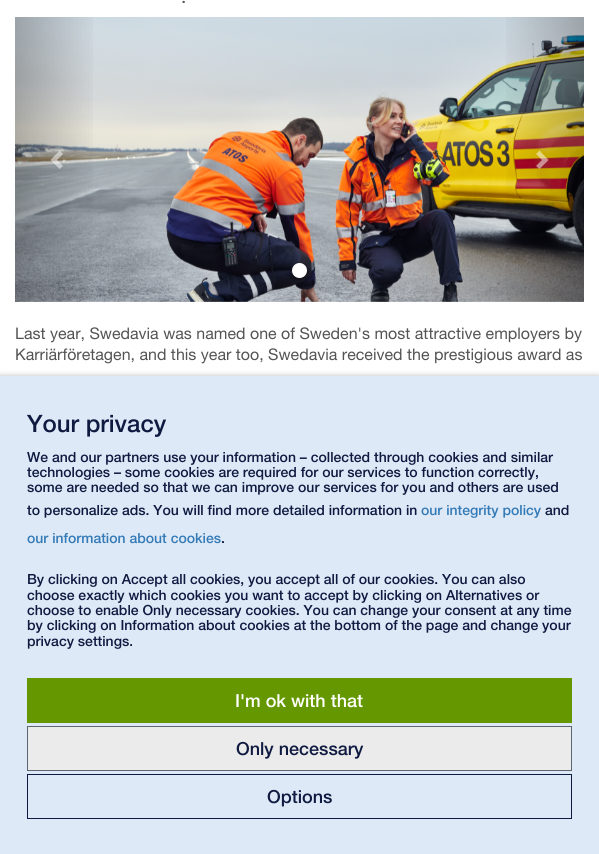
#include <cairo.h>
#include <math.h>
#include <stddef.h>

typedef struct { double x, y; const char *s; } line_t;

static void ink(cairo_t *ctx, unsigned color) {
    cairo_set_source_rgb(ctx, (color >> 16) / 255.0, (color >> 8 & 255) / 255.0, (color & 255) / 255.0);
}

static void round_path(cairo_t *ctx, double x, double y, double w, double h, double r) {
    cairo_new_sub_path(ctx);
    cairo_arc(ctx, x + w - r, y + h - r, r, 0, M_PI / 2);
    cairo_arc(ctx, x + r, y + h - r, r, M_PI / 2, M_PI);
    cairo_arc(ctx, x + r, y + r, r, M_PI, 1.5 * M_PI);
    cairo_arc(ctx, x + w - r, y + r, r, 1.5 * M_PI, 2 * M_PI);
    cairo_close_path(ctx);
}

static void blur_box(cairo_t *ctx, double x, double y, double w, double h, double r, double blur, double alpha) {
    cairo_push_group_with_content(ctx, CAIRO_CONTENT_ALPHA);
    cairo_set_operator(ctx, CAIRO_OPERATOR_SOURCE);
    for (int i = 15; i >= -15 && fmin(w, h) + blur * i / 3 > 0; i -= 2) {
        double e = blur * i / 6;
        cairo_set_source_rgba(ctx, 0, 0, 0, alpha * erfc((i - 1) / 8.5) / 2);
        round_path(ctx, x - e, y - e, w + 2 * e, h + 2 * e, fmax(0, fmin(r + e + blur * .6, fmin(w, h) / 2 + e)));
        cairo_fill(ctx);
    }
    cairo_pattern_t *soft = cairo_pop_group(ctx);
    cairo_mask(ctx, soft);
    cairo_pattern_destroy(soft);
}

static void paste(cairo_t *ctx, const char *path, double x, double y, double w, double h) {
    cairo_surface_t *image = cairo_image_surface_create_from_png(path);
    cairo_save(ctx);
    cairo_set_source_surface(ctx, image, x, y);
    cairo_rectangle(ctx, x, y, w, h);
    cairo_fill(ctx);
    cairo_restore(ctx);
    cairo_surface_destroy(image);
}

int main(void) {
    cairo_surface_t *surface = cairo_image_surface_create(CAIRO_FORMAT_RGB24, 599, 854);
    cairo_t *ctx = cairo_create(surface);
    cairo_font_options_t *options = cairo_font_options_create();
    cairo_font_options_set_hint_metrics(options, CAIRO_HINT_METRICS_OFF);
    cairo_font_options_set_hint_style(options, CAIRO_HINT_STYLE_NONE);
    cairo_set_font_options(ctx, options);
    cairo_set_miter_limit(ctx, 4);
    cairo_pattern_t *gradient;
    ink(ctx, 0xFFFFFF);
    cairo_paint(ctx);
    cairo_select_font_face(ctx, "Helvetica Neue", CAIRO_FONT_SLANT_NORMAL, CAIRO_FONT_WEIGHT_NORMAL);
    cairo_set_font_size(ctx, 19);
    ink(ctx, 0x545454);
    cairo_move_to(ctx, 181, 3);
    cairo_show_text(ctx, ".");
    paste(ctx, "media/1.png", 15, 17, 569, 285);
    gradient = cairo_pattern_create_linear(15, 160, 100, 160);
    cairo_pattern_add_color_stop_rgba(gradient, 0, 0, 0, 0, 0.25);
    cairo_pattern_add_color_stop_rgba(gradient, 1, 0, 0, 0, 0);
    cairo_set_source(ctx, gradient);
    cairo_pattern_destroy(gradient);
    cairo_rectangle(ctx, 15, 17, 78, 285);
    cairo_fill(ctx);
    cairo_set_source_rgba(ctx, 1, 1, 1, 0.5);
    cairo_new_path(ctx);
    cairo_move_to(ctx, 63, 154);
    cairo_line_to(ctx, 57, 160);
    cairo_line_to(ctx, 63, 166);
    cairo_line_to(ctx, 59.5, 169);
    cairo_line_to(ctx, 50.5, 160);
    cairo_line_to(ctx, 59.5, 150.5);
    cairo_close_path(ctx);
    cairo_fill(ctx);
    ink(ctx, 0xFFFFFF);
    cairo_arc(ctx, 299.5, 270.5, 7.5, 0, 2 * M_PI);
    cairo_fill(ctx);
    gradient = cairo_pattern_create_linear(499, 160, 584, 160);
    cairo_pattern_add_color_stop_rgba(gradient, 0, 0, 0, 0, 0);
    cairo_pattern_add_color_stop_rgba(gradient, 1, 0, 0, 0, 0.25);
    cairo_set_source(ctx, gradient);
    cairo_pattern_destroy(gradient);
    cairo_rectangle(ctx, 506, 17, 78, 285);
    cairo_fill(ctx);
    cairo_set_source_rgba(ctx, 1, 1, 1, 0.5);
    cairo_new_path(ctx);
    cairo_move_to(ctx, 548.5, 160);
    cairo_line_to(ctx, 539.5, 169);
    cairo_line_to(ctx, 536, 166);
    cairo_line_to(ctx, 542, 160);
    cairo_line_to(ctx, 536, 154);
    cairo_line_to(ctx, 539.5, 150.5);
    cairo_close_path(ctx);
    cairo_fill(ctx);
    cairo_set_font_size(ctx, 16);
    ink(ctx, 0x545454);
    cairo_move_to(ctx, 15, 339);
    cairo_show_text(ctx, "Last year, Swedavia was named one of Sweden's most attractive employers by");
    cairo_move_to(ctx, 15, 360);
    cairo_show_text(ctx, "Karriärföretagen, and this year too, Swedavia received the prestigious award as");
    ink(ctx, 0xBBBBBB);
    blur_box(ctx, 0, 376, 599, 478, 0, 3, 1);
    ink(ctx, 0xDDE9F6);
    cairo_rectangle(ctx, 0, 376, 599, 478);
    cairo_fill(ctx);
    cairo_select_font_face(ctx, "Helvetica Neue Medium", CAIRO_FONT_SLANT_NORMAL, CAIRO_FONT_WEIGHT_NORMAL);
    cairo_set_font_size(ctx, 24);
    ink(ctx, 0x0F1A41);
    cairo_move_to(ctx, 27, 432);
    cairo_show_text(ctx, "Your privacy");
    cairo_set_font_size(ctx, 14);
    {
        static const line_t items[] = {
            {27, 462, "We and our partners use your information – collected through cookies and similar"},
            {27, 477, "technologies – some cookies are required for our services to function correctly,"},
            {27, 492, "some are needed so that we can improve our services for you and others are used"},
            {27, 515, "to personalize ads. You will find more detailed information in"},
        };
        for (size_t i = 0; i < sizeof items / sizeof *items; i++) {
            cairo_move_to(ctx, items[i].x, items[i].y);
            cairo_show_text(ctx, items[i].s);
        }
    }
    ink(ctx, 0x337AB7);
    cairo_move_to(ctx, 421, 515);
    cairo_show_text(ctx, "our integrity policy");
    ink(ctx, 0x0F1A41);
    cairo_move_to(ctx, 545, 515);
    cairo_show_text(ctx, "and");
    ink(ctx, 0x337AB7);
    cairo_move_to(ctx, 27, 543);
    cairo_show_text(ctx, "our information about cookies");
    ink(ctx, 0x0F1A41);
    {
        static const line_t items[] = {
            {221, 543, "."},
            {27, 584, "By clicking on Accept all cookies, you accept all of our cookies. You can also"},
            {27, 600, "choose exactly which cookies you want to accept by clicking on Alternatives or"},
            {27, 615, "choose to enable Only necessary cookies. You can change your consent at any time"},
            {27, 630, "by clicking on Information about cookies at the bottom of the page and change your"},
            {27, 646, "privacy settings."},
        };
        for (size_t i = 0; i < sizeof items / sizeof *items; i++) {
            cairo_move_to(ctx, items[i].x, items[i].y);
            cairo_show_text(ctx, items[i].s);
        }
    }
    ink(ctx, 0x659800);
    cairo_rectangle(ctx, 27, 678, 545, 45);
    cairo_fill(ctx);
    cairo_set_font_size(ctx, 18);
    ink(ctx, 0xFFFFFF);
    cairo_move_to(ctx, 235, 707);
    cairo_show_text(ctx, "I'm ok with that");
    ink(ctx, 0xEBEBEB);
    cairo_rectangle(ctx, 27.5, 726.5, 544, 44);
    cairo_fill_preserve(ctx);
    ink(ctx, 0x5B666E);
    cairo_set_line_width(ctx, 1);
    cairo_stroke(ctx);
    ink(ctx, 0x0F1A41);
    cairo_move_to(ctx, 236, 755);
    cairo_show_text(ctx, "Only necessary");
    cairo_rectangle(ctx, 27.5, 774.5, 544, 44);
    cairo_stroke(ctx);
    cairo_move_to(ctx, 267, 803);
    cairo_show_text(ctx, "Options");
    cairo_surface_write_to_png(surface, "image.png");
    cairo_font_options_destroy(options);
    cairo_destroy(ctx);
    cairo_surface_destroy(surface);
    return 0;
}
